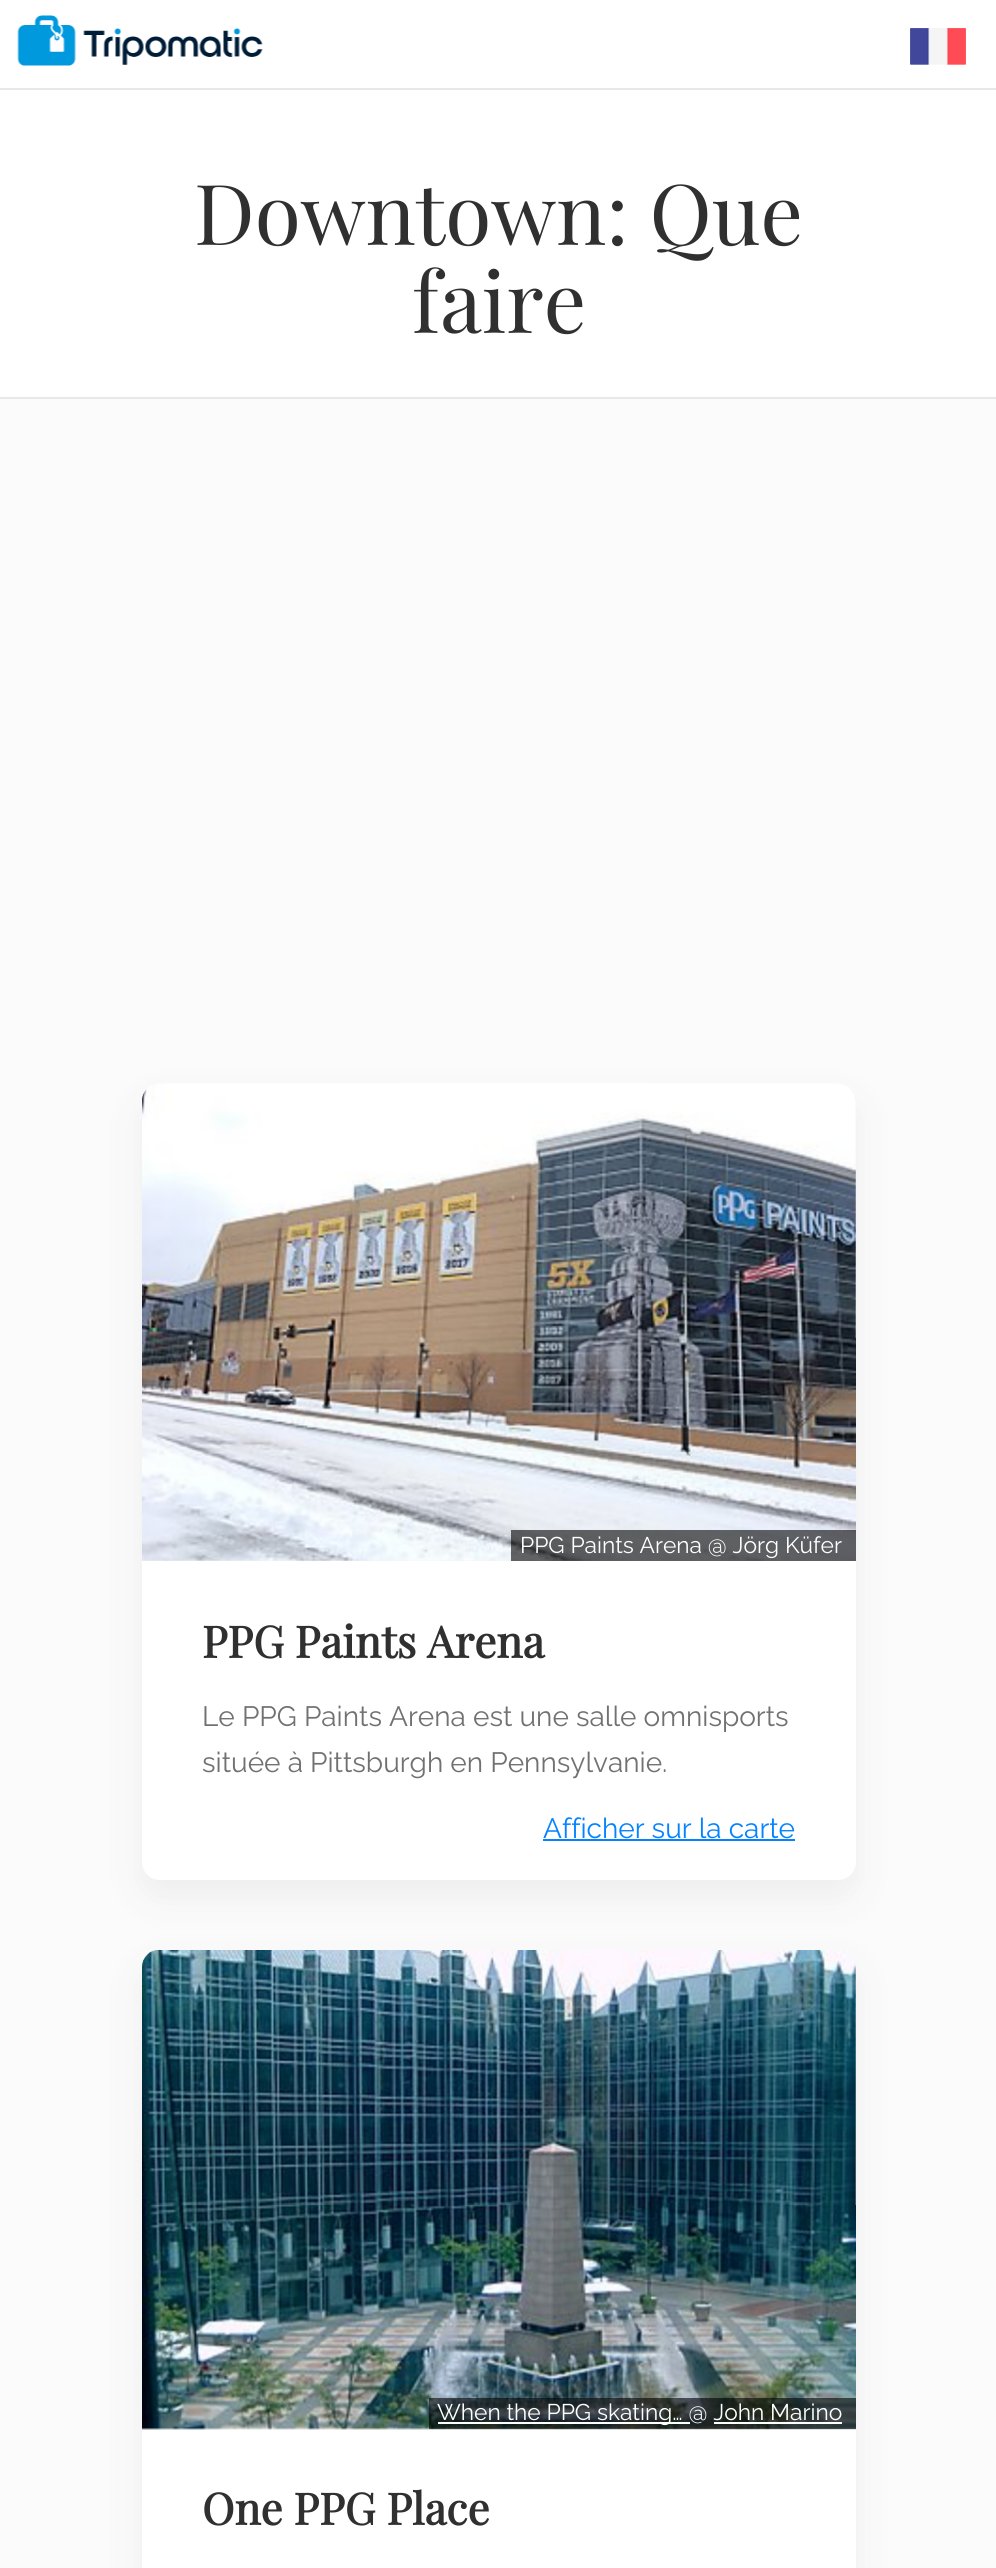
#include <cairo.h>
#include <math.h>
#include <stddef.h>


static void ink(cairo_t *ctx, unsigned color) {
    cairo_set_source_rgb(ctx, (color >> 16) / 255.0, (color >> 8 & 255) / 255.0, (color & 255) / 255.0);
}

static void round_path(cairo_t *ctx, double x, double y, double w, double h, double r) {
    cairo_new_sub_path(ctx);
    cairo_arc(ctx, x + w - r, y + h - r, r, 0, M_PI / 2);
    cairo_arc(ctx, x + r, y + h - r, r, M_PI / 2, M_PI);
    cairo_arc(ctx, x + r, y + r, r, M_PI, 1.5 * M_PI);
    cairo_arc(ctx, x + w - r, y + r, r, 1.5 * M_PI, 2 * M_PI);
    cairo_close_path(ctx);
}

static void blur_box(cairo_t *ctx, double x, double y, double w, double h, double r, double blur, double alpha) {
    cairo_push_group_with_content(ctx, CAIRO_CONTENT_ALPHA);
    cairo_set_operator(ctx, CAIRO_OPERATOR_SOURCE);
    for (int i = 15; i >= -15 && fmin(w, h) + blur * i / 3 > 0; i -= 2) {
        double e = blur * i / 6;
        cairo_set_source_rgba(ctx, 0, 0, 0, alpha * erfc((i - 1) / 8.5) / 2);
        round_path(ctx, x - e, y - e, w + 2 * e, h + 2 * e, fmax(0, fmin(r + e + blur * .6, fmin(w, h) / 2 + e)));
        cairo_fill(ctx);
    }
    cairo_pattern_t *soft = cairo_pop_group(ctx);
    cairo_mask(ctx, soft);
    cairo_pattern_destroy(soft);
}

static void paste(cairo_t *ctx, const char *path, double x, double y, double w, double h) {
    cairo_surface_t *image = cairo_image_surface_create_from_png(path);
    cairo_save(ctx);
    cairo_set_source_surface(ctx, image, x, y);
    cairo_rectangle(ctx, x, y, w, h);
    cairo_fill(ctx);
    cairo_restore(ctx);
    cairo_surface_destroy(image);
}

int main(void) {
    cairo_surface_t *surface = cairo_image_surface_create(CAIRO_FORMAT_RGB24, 996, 2568);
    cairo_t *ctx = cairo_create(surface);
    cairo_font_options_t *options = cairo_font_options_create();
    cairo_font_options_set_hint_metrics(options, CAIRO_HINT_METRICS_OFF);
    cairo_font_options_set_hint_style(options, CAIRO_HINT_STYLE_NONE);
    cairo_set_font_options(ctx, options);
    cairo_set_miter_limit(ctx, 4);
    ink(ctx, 0xFFFFFF);
    cairo_paint(ctx);
    ink(ctx, 0xE8E8E8);
    cairo_rectangle(ctx, 0, 88, 996, 2);
    cairo_fill(ctx);
    paste(ctx, "media/1.png", 17, 15, 246, 51);
    paste(ctx, "media/2.png", 910, 28, 56, 37);
    cairo_rectangle(ctx, 0, 397, 996, 2);
    cairo_fill(ctx);
    cairo_select_font_face(ctx, "Playfair Display", CAIRO_FONT_SLANT_NORMAL, CAIRO_FONT_WEIGHT_NORMAL);
    cairo_set_font_size(ctx, 84);
    ink(ctx, 0x303030);
    cairo_move_to(ctx, 194, 245);
    cairo_show_text(ctx, "Downtown: Que");
    cairo_move_to(ctx, 412, 333);
    cairo_show_text(ctx, "faire");
    ink(ctx, 0xFBFBFB);
    cairo_rectangle(ctx, 0, 399, 996, 2169);
    cairo_fill(ctx);
    ink(ctx, 0xEEEEEE);
    blur_box(ctx, 142, 1101, 714, 796, 18, 17.5, 1);
    ink(ctx, 0xFFFFFF);
    round_path(ctx, 142, 1083, 714, 797, 18);
    cairo_fill(ctx);
    ink(ctx, 0xF1F3ED);
    cairo_new_path(ctx);
    cairo_move_to(ctx, 160, 1083);
    cairo_line_to(ctx, 838, 1083);
    cairo_curve_to(ctx, 848, 1083, 856, 1091, 856, 1101);
    cairo_line_to(ctx, 856, 1561);
    cairo_line_to(ctx, 142, 1561);
    cairo_line_to(ctx, 142, 1101);
    cairo_curve_to(ctx, 142, 1091, 150, 1083, 160, 1083);
    cairo_close_path(ctx);
    cairo_fill(ctx);
    paste(ctx, "media/3.png", 142, 1083, 714, 478);
    cairo_set_source_rgba(ctx, 0, 0, 0, 0.6);
    cairo_rectangle(ctx, 511, 1530, 345, 31);
    cairo_fill(ctx);
    cairo_select_font_face(ctx, "Raleway", CAIRO_FONT_SLANT_NORMAL, CAIRO_FONT_WEIGHT_NORMAL);
    cairo_set_font_size(ctx, 22.75);
    ink(ctx, 0xFFFFFF);
    cairo_move_to(ctx, 520, 1553);
    cairo_show_text(ctx, "PPG Paints Arena @ Jörg Küfer");
    cairo_select_font_face(ctx, "Playfair Display", CAIRO_FONT_SLANT_NORMAL, CAIRO_FONT_WEIGHT_BOLD);
    cairo_set_font_size(ctx, 43.75);
    ink(ctx, 0x303030);
    cairo_move_to(ctx, 202, 1658);
    cairo_show_text(ctx, "PPG Paints Arena");
    cairo_select_font_face(ctx, "Raleway", CAIRO_FONT_SLANT_NORMAL, CAIRO_FONT_WEIGHT_NORMAL);
    cairo_set_font_size(ctx, 28);
    ink(ctx, 0x717171);
    cairo_move_to(ctx, 202, 1726);
    cairo_show_text(ctx, "Le PPG Paints Arena est une salle omnisports");
    cairo_move_to(ctx, 202, 1772);
    cairo_show_text(ctx, "située à Pittsburgh en Pennsylvanie.");
    ink(ctx, 0x0583FF);
    cairo_move_to(ctx, 543, 1838);
    cairo_show_text(ctx, "Afficher sur la carte");
    cairo_rectangle(ctx, 543, 1839, 252, 2);
    cairo_fill(ctx);
    ink(ctx, 0xEEEEEE);
    blur_box(ctx, 142, 1967, 714, 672, 18, 17.5, 1);
    ink(ctx, 0xFFFFFF);
    round_path(ctx, 142, 1950, 714, 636, 18);
    cairo_fill(ctx);
    ink(ctx, 0xF1F3ED);
    cairo_new_path(ctx);
    cairo_move_to(ctx, 160, 1950);
    cairo_line_to(ctx, 838, 1950);
    cairo_curve_to(ctx, 848, 1950, 856, 1958, 856, 1968);
    cairo_line_to(ctx, 856, 2429);
    cairo_line_to(ctx, 142, 2429);
    cairo_line_to(ctx, 142, 1968);
    cairo_curve_to(ctx, 142, 1958, 150, 1950, 160, 1950);
    cairo_close_path(ctx);
    cairo_fill(ctx);
    paste(ctx, "media/4.png", 142, 1950, 714, 480);
    cairo_set_source_rgba(ctx, 0, 0, 0, 0.6);
    cairo_rectangle(ctx, 429, 2398, 427, 31);
    cairo_fill(ctx);
    ink(ctx, 0xFFFFFF);
    cairo_rectangle(ctx, 438, 2422, 252, 2);
    cairo_fill(ctx);
    cairo_set_font_size(ctx, 22.75);
    cairo_move_to(ctx, 437, 2420);
    cairo_show_text(ctx, "When the PPG skating… @ John Marino");
    cairo_rectangle(ctx, 714, 2422, 128, 2);
    cairo_fill(ctx);
    cairo_select_font_face(ctx, "Playfair Display", CAIRO_FONT_SLANT_NORMAL, CAIRO_FONT_WEIGHT_BOLD);
    cairo_set_font_size(ctx, 43.75);
    ink(ctx, 0x303030);
    cairo_move_to(ctx, 202, 2525);
    cairo_show_text(ctx, "One PPG Place");
    cairo_surface_write_to_png(surface, "image.png");
    cairo_font_options_destroy(options);
    cairo_destroy(ctx);
    cairo_surface_destroy(surface);
    return 0;
}
